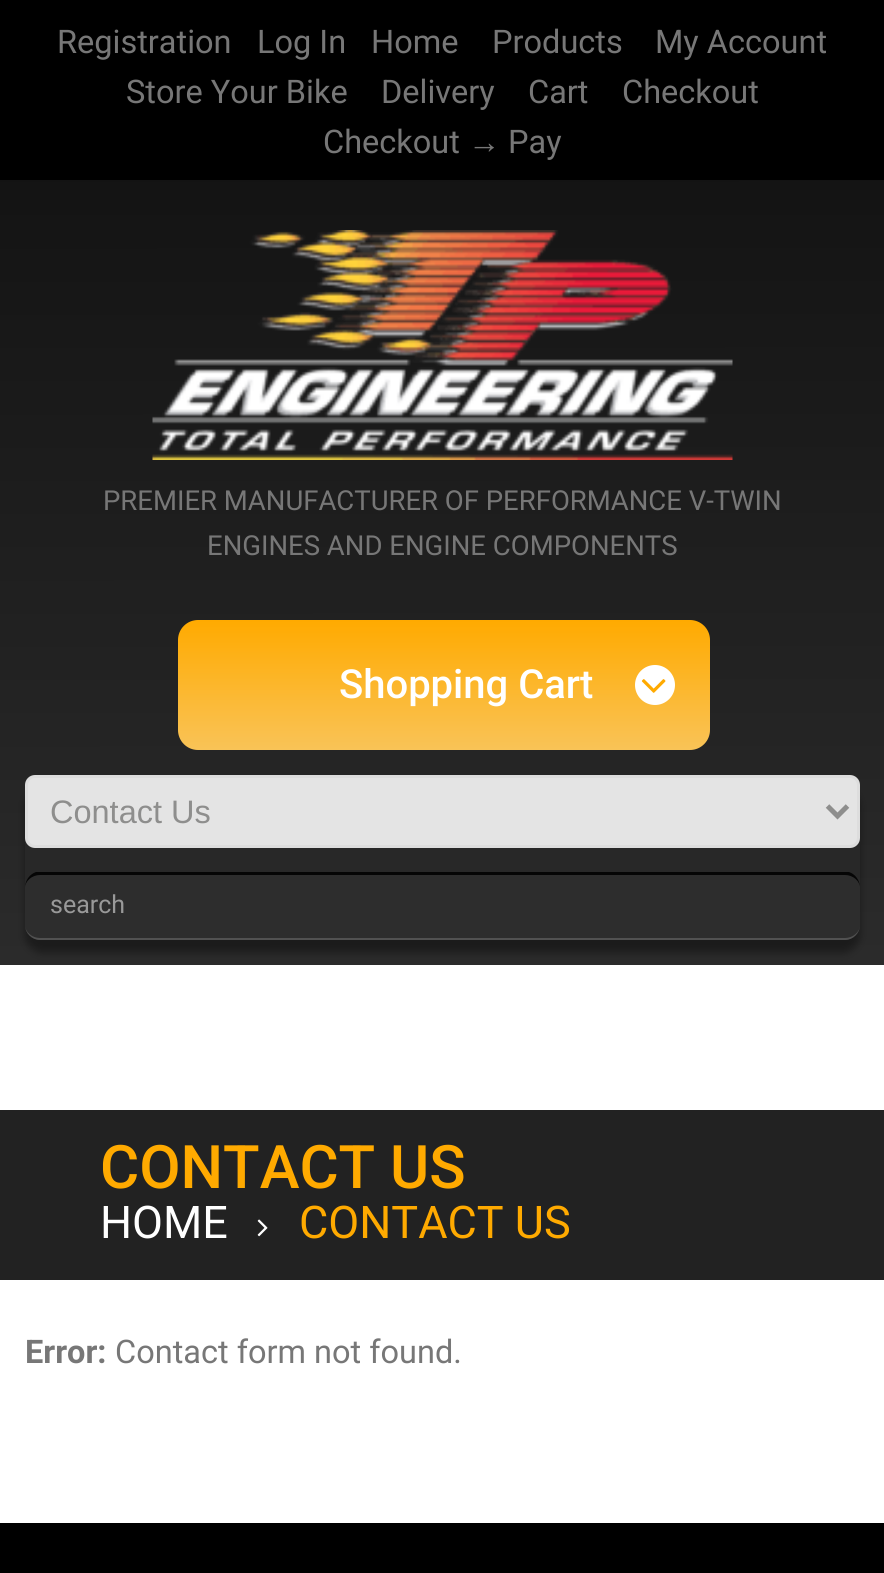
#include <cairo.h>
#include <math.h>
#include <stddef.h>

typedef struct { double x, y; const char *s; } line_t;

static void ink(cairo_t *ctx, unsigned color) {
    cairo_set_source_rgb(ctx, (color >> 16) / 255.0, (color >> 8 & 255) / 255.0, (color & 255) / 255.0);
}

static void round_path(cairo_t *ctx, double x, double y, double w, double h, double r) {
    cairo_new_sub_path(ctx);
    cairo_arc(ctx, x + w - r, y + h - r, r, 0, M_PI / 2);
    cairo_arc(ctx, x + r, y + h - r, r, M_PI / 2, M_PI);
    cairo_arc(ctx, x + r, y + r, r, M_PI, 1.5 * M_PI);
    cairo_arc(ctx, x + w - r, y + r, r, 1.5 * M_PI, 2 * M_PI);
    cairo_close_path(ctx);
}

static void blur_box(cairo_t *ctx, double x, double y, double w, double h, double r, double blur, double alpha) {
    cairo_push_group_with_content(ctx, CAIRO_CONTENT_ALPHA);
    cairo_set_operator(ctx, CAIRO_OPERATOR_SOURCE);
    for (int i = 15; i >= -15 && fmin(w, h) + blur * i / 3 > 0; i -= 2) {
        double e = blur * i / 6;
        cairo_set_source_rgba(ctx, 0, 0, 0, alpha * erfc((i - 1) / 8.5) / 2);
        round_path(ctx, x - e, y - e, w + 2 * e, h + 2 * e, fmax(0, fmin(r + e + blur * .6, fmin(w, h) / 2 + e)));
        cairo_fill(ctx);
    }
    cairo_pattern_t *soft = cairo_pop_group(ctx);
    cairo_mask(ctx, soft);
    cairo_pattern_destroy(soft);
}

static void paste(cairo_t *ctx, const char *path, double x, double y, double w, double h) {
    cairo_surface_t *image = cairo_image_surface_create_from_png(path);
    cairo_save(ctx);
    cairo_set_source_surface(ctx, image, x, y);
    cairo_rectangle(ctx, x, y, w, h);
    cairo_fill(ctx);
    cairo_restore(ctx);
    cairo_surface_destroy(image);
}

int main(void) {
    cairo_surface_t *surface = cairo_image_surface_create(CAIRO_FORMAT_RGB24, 884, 1573);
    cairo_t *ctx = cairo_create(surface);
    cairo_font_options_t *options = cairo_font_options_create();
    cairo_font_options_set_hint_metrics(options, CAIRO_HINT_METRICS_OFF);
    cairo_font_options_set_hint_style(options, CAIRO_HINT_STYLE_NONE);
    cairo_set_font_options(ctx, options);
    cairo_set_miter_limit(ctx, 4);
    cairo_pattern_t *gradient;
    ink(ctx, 0xFFFFFF);
    cairo_paint(ctx);
    gradient = cairo_pattern_create_linear(442, 0, 443, 965);
    cairo_pattern_add_color_stop_rgba(gradient, 0, 0.055, 0.055, 0.055, 1);
    cairo_pattern_add_color_stop_rgba(gradient, 1, 0.169, 0.169, 0.169, 1);
    cairo_set_source(ctx, gradient);
    cairo_pattern_destroy(gradient);
    cairo_rectangle(ctx, 0, 180, 884, 785);
    cairo_fill(ctx);
    ink(ctx, 0x000000);
    cairo_rectangle(ctx, 0, 0, 884, 180);
    cairo_fill(ctx);
    cairo_select_font_face(ctx, "Roboto", CAIRO_FONT_SLANT_NORMAL, CAIRO_FONT_WEIGHT_NORMAL);
    cairo_set_font_size(ctx, 32.5);
    ink(ctx, 0x777777);
    {
        static const line_t items[] = {
            {57, 53, "Registration"},
            {257, 53, "Log In"},
            {371, 53, "Home"},
            {492, 53, "Products"},
            {655, 53, "My Account"},
            {126, 103, "Store Your Bike"},
            {381, 103, "Delivery"},
            {528, 103, "Cart"},
            {622, 103, "Checkout"},
            {323, 153, "Checkout"},
        };
        for (size_t i = 0; i < sizeof items / sizeof *items; i++) {
            cairo_move_to(ctx, items[i].x, items[i].y);
            cairo_show_text(ctx, items[i].s);
        }
    }
    cairo_select_font_face(ctx, "Liberation Serif", CAIRO_FONT_SLANT_NORMAL, CAIRO_FONT_WEIGHT_NORMAL);
    cairo_move_to(ctx, 468, 153);
    cairo_show_text(ctx, "→");
    cairo_select_font_face(ctx, "Roboto", CAIRO_FONT_SLANT_NORMAL, CAIRO_FONT_WEIGHT_NORMAL);
    cairo_move_to(ctx, 508, 153);
    cairo_show_text(ctx, "Pay");
    paste(ctx, "media/1.png", 152, 230, 581, 230);
    cairo_set_font_size(ctx, 27.5);
    cairo_move_to(ctx, 103, 510);
    cairo_show_text(ctx, "PREMIER MANUFACTURER OF PERFORMANCE V-TWIN");
    cairo_move_to(ctx, 207, 555);
    cairo_show_text(ctx, "ENGINES AND ENGINE COMPONENTS");
    gradient = cairo_pattern_create_linear(444, 620, 444, 750);
    cairo_pattern_add_color_stop_rgba(gradient, 0, 1, 0.667, 0, 1);
    cairo_pattern_add_color_stop_rgba(gradient, 1, 0.976, 0.765, 0.341, 1);
    cairo_set_source(ctx, gradient);
    cairo_pattern_destroy(gradient);
    round_path(ctx, 178, 620, 532, 130, 20);
    cairo_fill(ctx);
    cairo_select_font_face(ctx, "Roboto Medium", CAIRO_FONT_SLANT_NORMAL, CAIRO_FONT_WEIGHT_NORMAL);
    cairo_set_font_size(ctx, 40);
    ink(ctx, 0xFFFFFF);
    cairo_move_to(ctx, 339, 698);
    cairo_show_text(ctx, "Shopping Cart");
    cairo_new_path(ctx);
    cairo_arc(ctx, 655, 685, 20, 0, 2 * M_PI);
    cairo_fill(ctx);
    paste(ctx, "media/2.png", 641, 679, 25, 14);
    cairo_save(ctx);
    cairo_set_fill_rule(ctx, CAIRO_FILL_RULE_EVEN_ODD);
    cairo_new_path(ctx);
    cairo_move_to(ctx, 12, 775);
    cairo_line_to(ctx, 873, 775);
    cairo_line_to(ctx, 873, 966);
    cairo_line_to(ctx, 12, 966);
    cairo_close_path(ctx);
    cairo_move_to(ctx, 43, 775);
    cairo_line_to(ctx, 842, 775);
    cairo_curve_to(ctx, 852, 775, 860, 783, 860, 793);
    cairo_line_to(ctx, 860, 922);
    cairo_curve_to(ctx, 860, 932, 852, 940, 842, 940);
    cairo_line_to(ctx, 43, 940);
    cairo_curve_to(ctx, 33, 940, 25, 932, 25, 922);
    cairo_line_to(ctx, 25, 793);
    cairo_curve_to(ctx, 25, 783, 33, 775, 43, 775);
    cairo_close_path(ctx);
    cairo_clip(ctx);
    ink(ctx, 0x000000);
    blur_box(ctx, 25, 788, 835, 165, 18, 4, 0.36);
    cairo_restore(ctx);
    ink(ctx, 0xE4E4E4);
    round_path(ctx, 26.5, 776.5, 832, 70, 8.5);
    cairo_fill_preserve(ctx);
    ink(ctx, 0xDDDDDD);
    cairo_set_line_width(ctx, 3);
    cairo_stroke(ctx);
    cairo_new_path(ctx);
    cairo_move_to(ctx, 827.5, 806);
    cairo_line_to(ctx, 837.5, 816);
    cairo_line_to(ctx, 847.5, 806);
    ink(ctx, 0x8E8E8D);
    cairo_set_line_width(ctx, 5);
    cairo_stroke(ctx);
    cairo_select_font_face(ctx, "Liberation Sans", CAIRO_FONT_SLANT_NORMAL, CAIRO_FONT_WEIGHT_NORMAL);
    cairo_set_font_size(ctx, 32.5);
    cairo_move_to(ctx, 50, 823);
    cairo_show_text(ctx, "Contact Us");
    ink(ctx, 0x2D2D2D);
    round_path(ctx, 25, 873, 835, 67, 15);
    cairo_fill(ctx);
    ink(ctx, 0x050505);
    cairo_new_path(ctx);
    cairo_move_to(ctx, 40, 875);
    cairo_curve_to(ctx, 32, 875, 25, 881, 25, 888);
    cairo_curve_to(ctx, 25, 880, 30, 874, 36, 872);
    cairo_line_to(ctx, 849, 872);
    cairo_curve_to(ctx, 855, 874, 860, 880, 860, 888);
    cairo_curve_to(ctx, 860, 881, 853, 875, 845, 875);
    cairo_close_path(ctx);
    cairo_fill(ctx);
    ink(ctx, 0x515151);
    cairo_new_path(ctx);
    cairo_move_to(ctx, 845, 940);
    cairo_curve_to(ctx, 853, 940, 860, 933, 860, 925);
    cairo_curve_to(ctx, 860, 932, 853, 938, 845, 938);
    cairo_line_to(ctx, 40, 938);
    cairo_curve_to(ctx, 32, 938, 25, 932, 25, 925);
    cairo_curve_to(ctx, 25, 933, 32, 940, 40, 940);
    cairo_close_path(ctx);
    cairo_fill(ctx);
    cairo_select_font_face(ctx, "Roboto", CAIRO_FONT_SLANT_NORMAL, CAIRO_FONT_WEIGHT_NORMAL);
    cairo_set_font_size(ctx, 25);
    ink(ctx, 0x999999);
    cairo_move_to(ctx, 50, 913);
    cairo_show_text(ctx, "search");
    ink(ctx, 0x222222);
    cairo_rectangle(ctx, 0, 1110, 884, 170);
    cairo_fill(ctx);
    cairo_select_font_face(ctx, "Roboto Medium", CAIRO_FONT_SLANT_NORMAL, CAIRO_FONT_WEIGHT_NORMAL);
    cairo_set_font_size(ctx, 60);
    ink(ctx, 0xFFAA00);
    cairo_move_to(ctx, 100, 1188);
    cairo_show_text(ctx, "CONTACT US");
    cairo_select_font_face(ctx, "Roboto", CAIRO_FONT_SLANT_NORMAL, CAIRO_FONT_WEIGHT_NORMAL);
    cairo_set_font_size(ctx, 45);
    ink(ctx, 0xFFFFFF);
    cairo_move_to(ctx, 100, 1238);
    cairo_show_text(ctx, "HOME");
    paste(ctx, "media/3.png", 257, 1219, 11, 18);
    ink(ctx, 0xFFAA00);
    cairo_move_to(ctx, 299, 1238);
    cairo_show_text(ctx, "CONTACT US");
    cairo_select_font_face(ctx, "Roboto", CAIRO_FONT_SLANT_NORMAL, CAIRO_FONT_WEIGHT_BOLD);
    cairo_set_font_size(ctx, 32.5);
    ink(ctx, 0x777777);
    cairo_move_to(ctx, 25, 1363);
    cairo_show_text(ctx, "Error:");
    cairo_select_font_face(ctx, "Roboto", CAIRO_FONT_SLANT_NORMAL, CAIRO_FONT_WEIGHT_NORMAL);
    cairo_move_to(ctx, 115, 1363);
    cairo_show_text(ctx, "Contact form not found.");
    ink(ctx, 0x000000);
    cairo_rectangle(ctx, 0, 1523, 884, 50);
    cairo_fill(ctx);
    cairo_surface_write_to_png(surface, "image.png");
    cairo_font_options_destroy(options);
    cairo_destroy(ctx);
    cairo_surface_destroy(surface);
    return 0;
}
